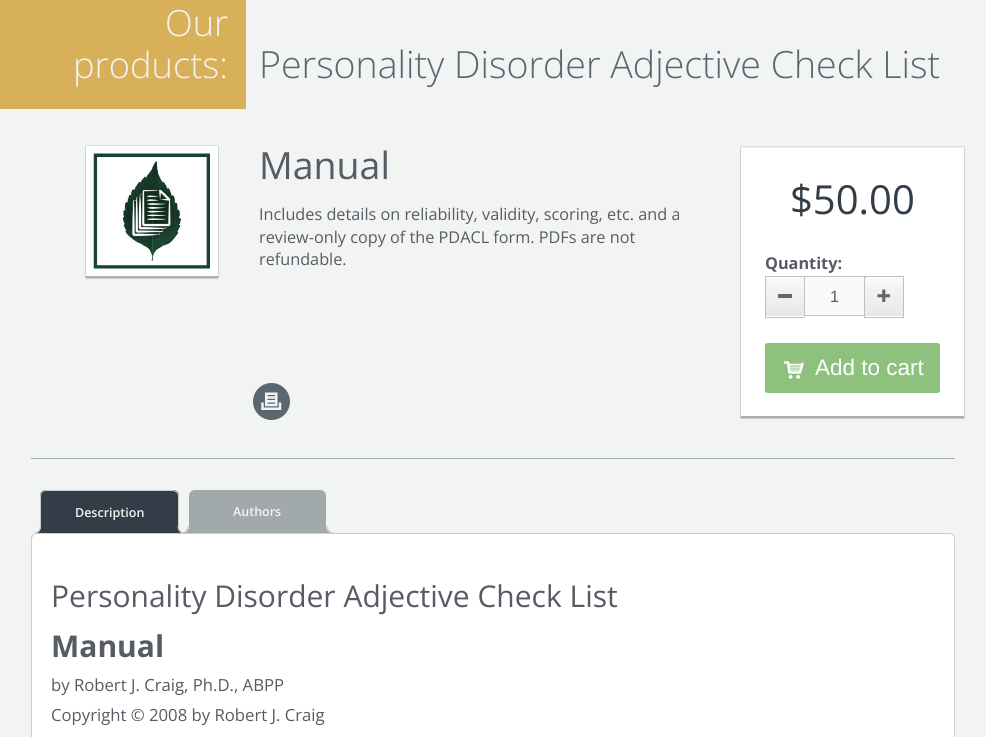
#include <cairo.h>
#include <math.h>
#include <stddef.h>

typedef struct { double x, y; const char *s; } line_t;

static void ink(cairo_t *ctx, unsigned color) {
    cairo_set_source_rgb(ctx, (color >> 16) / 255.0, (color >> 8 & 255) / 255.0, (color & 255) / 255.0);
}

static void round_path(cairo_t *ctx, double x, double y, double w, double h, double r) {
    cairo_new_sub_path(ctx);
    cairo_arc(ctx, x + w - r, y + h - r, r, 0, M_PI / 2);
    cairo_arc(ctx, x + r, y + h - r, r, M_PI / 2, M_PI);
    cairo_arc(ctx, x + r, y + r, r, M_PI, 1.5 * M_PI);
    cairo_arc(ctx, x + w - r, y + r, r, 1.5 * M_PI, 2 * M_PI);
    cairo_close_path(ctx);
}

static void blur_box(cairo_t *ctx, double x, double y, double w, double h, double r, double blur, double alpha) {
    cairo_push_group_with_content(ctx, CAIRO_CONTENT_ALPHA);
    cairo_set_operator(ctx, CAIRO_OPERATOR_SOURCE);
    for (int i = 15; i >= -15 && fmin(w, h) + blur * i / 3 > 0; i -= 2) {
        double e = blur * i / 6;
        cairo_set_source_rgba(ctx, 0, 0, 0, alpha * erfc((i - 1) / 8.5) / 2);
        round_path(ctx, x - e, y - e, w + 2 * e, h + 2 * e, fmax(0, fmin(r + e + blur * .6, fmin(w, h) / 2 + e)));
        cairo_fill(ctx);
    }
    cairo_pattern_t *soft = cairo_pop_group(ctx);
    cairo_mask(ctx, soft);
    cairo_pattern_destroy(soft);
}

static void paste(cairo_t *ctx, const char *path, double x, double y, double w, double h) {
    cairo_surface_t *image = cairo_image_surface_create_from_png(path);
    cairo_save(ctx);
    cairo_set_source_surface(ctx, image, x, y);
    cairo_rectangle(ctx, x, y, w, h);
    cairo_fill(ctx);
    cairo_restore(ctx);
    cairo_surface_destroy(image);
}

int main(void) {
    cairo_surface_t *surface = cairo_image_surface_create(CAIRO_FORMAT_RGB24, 986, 737);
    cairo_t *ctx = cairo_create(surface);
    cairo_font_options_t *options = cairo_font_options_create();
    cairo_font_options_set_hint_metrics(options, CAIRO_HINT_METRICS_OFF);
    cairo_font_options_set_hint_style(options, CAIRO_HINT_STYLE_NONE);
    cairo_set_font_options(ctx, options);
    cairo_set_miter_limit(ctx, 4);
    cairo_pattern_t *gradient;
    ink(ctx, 0xF2F3F3);
    cairo_paint(ctx);
    ink(ctx, 0xD7B059);
    cairo_rectangle(ctx, 0, 0, 246, 109);
    cairo_fill(ctx);
    cairo_select_font_face(ctx, "Open Sans Light", CAIRO_FONT_SLANT_NORMAL, CAIRO_FONT_WEIGHT_NORMAL);
    cairo_set_font_size(ctx, 36.25);
    ink(ctx, 0xF2F3F3);
    cairo_move_to(ctx, 165, 36);
    cairo_show_text(ctx, "Our");
    cairo_move_to(ctx, 73, 78);
    cairo_show_text(ctx, "products:");
    cairo_set_font_size(ctx, 37.5);
    ink(ctx, 0x5B6670);
    cairo_move_to(ctx, 259, 78);
    cairo_show_text(ctx, "Personality Disorder Adjective Check List");
    ink(ctx, 0x000000);
    blur_box(ctx, 86, 149, 132, 130, 0, 0.5, 0.1);
    blur_box(ctx, 86, 148, 132, 130, 0, 0.5, 0.2);
    cairo_rectangle(ctx, 85.5, 145.5, 133, 132);
    cairo_set_source_rgba(ctx, 0, 0, 0, 0.09);
    cairo_set_line_width(ctx, 1);
    cairo_stroke(ctx);
    ink(ctx, 0xFFFFFF);
    cairo_rectangle(ctx, 86, 146, 132, 130);
    cairo_fill(ctx);
    paste(ctx, "media/1.png", 93, 153, 117, 116);
    cairo_select_font_face(ctx, "Open Sans", CAIRO_FONT_SLANT_NORMAL, CAIRO_FONT_WEIGHT_NORMAL);
    ink(ctx, 0x565B64);
    cairo_move_to(ctx, 259, 179);
    cairo_show_text(ctx, "Manual");
    cairo_set_font_size(ctx, 16.25);
    {
        static const line_t items[] = {
            {259, 220, "Includes details on reliability, validity, scoring, etc. and a"},
            {259, 243, "review-only copy of the PDACL form. PDFs are not"},
            {259, 265, "refundable."},
        };
        for (size_t i = 0; i < sizeof items / sizeof *items; i++) {
            cairo_move_to(ctx, items[i].x, items[i].y);
            cairo_show_text(ctx, items[i].s);
        }
    }
    ink(ctx, 0x5A6771);
    cairo_new_path(ctx);
    cairo_arc(ctx, 271.5, 401.5, 18.5, 0, 2 * M_PI);
    cairo_fill(ctx);
    paste(ctx, "media/2.png", 261, 392, 21, 18);
    ink(ctx, 0x000000);
    blur_box(ctx, 741, 150, 223, 269, 0, 0.5, 0.1);
    blur_box(ctx, 741, 149, 223, 269, 0, 0.5, 0.2);
    cairo_rectangle(ctx, 740.5, 146.5, 224, 271);
    cairo_set_source_rgba(ctx, 0, 0, 0, 0.09);
    cairo_stroke(ctx);
    ink(ctx, 0xFFFFFF);
    cairo_rectangle(ctx, 741, 148, 223, 268);
    cairo_fill(ctx);
    cairo_set_font_size(ctx, 40);
    ink(ctx, 0x323D47);
    cairo_move_to(ctx, 790, 214);
    cairo_show_text(ctx, "$50.00");
    cairo_select_font_face(ctx, "Open Sans", CAIRO_FONT_SLANT_NORMAL, CAIRO_FONT_WEIGHT_BOLD);
    cairo_set_font_size(ctx, 16.25);
    ink(ctx, 0x565B64);
    cairo_move_to(ctx, 765, 269);
    cairo_show_text(ctx, "Quantity:");
    gradient = cairo_pattern_create_linear(785, 278, 785, 316);
    cairo_pattern_add_color_stop_rgba(gradient, 0, 0.973, 0.973, 0.973, 1);
    cairo_pattern_add_color_stop_rgba(gradient, 1, 0.906, 0.906, 0.906, 1);
    cairo_set_source(ctx, gradient);
    cairo_pattern_destroy(gradient);
    cairo_rectangle(ctx, 766, 279, 38, 37);
    cairo_fill(ctx);
    ink(ctx, 0xFAFAFA);
    cairo_rectangle(ctx, 766, 278, 38, 1);
    cairo_fill(ctx);
    cairo_rectangle(ctx, 765.5, 276.5, 39, 41);
    ink(ctx, 0xC0C0C0);
    cairo_stroke(ctx);
    ink(ctx, 0x666666);
    cairo_rectangle(ctx, 778, 294, 14, 4);
    cairo_fill(ctx);
    cairo_set_source_rgba(ctx, 1, 1, 1, 0.45);
    cairo_rectangle(ctx, 804, 316, 1, 2);
    cairo_fill(ctx);
    ink(ctx, 0xFAFAFA);
    cairo_rectangle(ctx, 805, 277, 59, 38);
    cairo_fill(ctx);
    cairo_rectangle(ctx, 804.5, 276.5, 61, 39);
    ink(ctx, 0xBDC2C9);
    cairo_stroke(ctx);
    cairo_select_font_face(ctx, "Liberation Sans", CAIRO_FONT_SLANT_NORMAL, CAIRO_FONT_WEIGHT_NORMAL);
    ink(ctx, 0x565B64);
    cairo_move_to(ctx, 830, 302);
    cairo_show_text(ctx, "1");
    gradient = cairo_pattern_create_linear(884, 278, 884, 316);
    cairo_pattern_add_color_stop_rgba(gradient, 0, 0.973, 0.973, 0.973, 1);
    cairo_pattern_add_color_stop_rgba(gradient, 1, 0.906, 0.906, 0.906, 1);
    cairo_set_source(ctx, gradient);
    cairo_pattern_destroy(gradient);
    cairo_rectangle(ctx, 865, 279, 38, 37);
    cairo_fill(ctx);
    ink(ctx, 0xFAFAFA);
    cairo_rectangle(ctx, 865, 278, 38, 1);
    cairo_fill(ctx);
    cairo_rectangle(ctx, 864.5, 276.5, 39, 41);
    ink(ctx, 0xC0C0C0);
    cairo_stroke(ctx);
    paste(ctx, "media/3.png", 877, 289, 13, 13);
    ink(ctx, 0x8DC17D);
    round_path(ctx, 765, 343, 175, 50, 2.5);
    cairo_fill(ctx);
    paste(ctx, "media/4.png", 783, 361, 21, 18);
    cairo_set_font_size(ctx, 22.5);
    ink(ctx, 0xFFFFFF);
    cairo_move_to(ctx, 815, 375);
    cairo_show_text(ctx, "Add to cart");
    ink(ctx, 0xA2A9AD);
    cairo_rectangle(ctx, 31, 458, 924, 1);
    cairo_fill(ctx);
    ink(ctx, 0x323D47);
    cairo_new_path(ctx);
    cairo_move_to(ctx, 46, 490);
    cairo_line_to(ctx, 173, 490);
    cairo_curve_to(ctx, 176.5, 490, 179, 492.5, 179, 496);
    cairo_line_to(ctx, 179, 533);
    cairo_line_to(ctx, 40, 533);
    cairo_line_to(ctx, 40, 496);
    cairo_curve_to(ctx, 40, 492.5, 42.5, 490, 46, 490);
    cairo_close_path(ctx);
    cairo_fill(ctx);
    ink(ctx, 0xCCCCCC);
    cairo_set_fill_rule(ctx, CAIRO_FILL_RULE_EVEN_ODD);
    cairo_new_path(ctx);
    cairo_move_to(ctx, 46, 490);
    cairo_line_to(ctx, 172, 490);
    cairo_curve_to(ctx, 176, 490, 179, 493, 179, 496);
    cairo_line_to(ctx, 179, 532);
    cairo_line_to(ctx, 40, 532);
    cairo_line_to(ctx, 40, 496);
    cairo_curve_to(ctx, 40, 493, 43, 490, 46, 490);
    cairo_close_path(ctx);
    cairo_move_to(ctx, 46, 491);
    cairo_line_to(ctx, 172, 491);
    cairo_curve_to(ctx, 175, 491, 178, 493, 178, 496);
    cairo_line_to(ctx, 178, 532);
    cairo_line_to(ctx, 41, 532);
    cairo_line_to(ctx, 41, 496);
    cairo_curve_to(ctx, 41, 493, 43, 491, 46, 491);
    cairo_close_path(ctx);
    cairo_fill(ctx);
    cairo_select_font_face(ctx, "Open Sans SemiBold", CAIRO_FONT_SLANT_NORMAL, CAIRO_FONT_WEIGHT_NORMAL);
    cairo_set_font_size(ctx, 12.5);
    ink(ctx, 0xF2F3F3);
    cairo_move_to(ctx, 75, 517);
    cairo_show_text(ctx, "Description");
    cairo_save(ctx);
    cairo_set_fill_rule(ctx, CAIRO_FILL_RULE_WINDING);
    cairo_rectangle(ctx, 31, 490, 924, 43);
    cairo_clip(ctx);
    ink(ctx, 0x323D47);
    cairo_new_path(ctx);
    cairo_move_to(ctx, 36, 533.5);
    cairo_line_to(ctx, 36, 536);
    cairo_curve_to(ctx, 40, 536, 44, 533.5, 44, 529);
    cairo_line_to(ctx, 40.5, 529);
    cairo_curve_to(ctx, 40, 531, 38, 532.5, 36, 533.5);
    cairo_close_path(ctx);
    cairo_fill(ctx);
    ink(ctx, 0xCCCCCC);
    cairo_set_fill_rule(ctx, CAIRO_FILL_RULE_EVEN_ODD);
    cairo_new_path(ctx);
    cairo_move_to(ctx, 34, 526);
    cairo_line_to(ctx, 41, 526);
    cairo_curve_to(ctx, 41, 530.5, 38, 534, 34, 534);
    cairo_close_path(ctx);
    cairo_move_to(ctx, 34, 526);
    cairo_line_to(ctx, 40, 526);
    cairo_curve_to(ctx, 40, 529.5, 37, 532.5, 34, 532.5);
    cairo_close_path(ctx);
    cairo_fill(ctx);
    ink(ctx, 0x323D47);
    cairo_set_fill_rule(ctx, CAIRO_FILL_RULE_WINDING);
    cairo_new_path(ctx);
    cairo_move_to(ctx, 175, 529);
    cairo_curve_to(ctx, 175, 533.5, 179, 536, 183, 536);
    cairo_line_to(ctx, 183, 533.5);
    cairo_curve_to(ctx, 180.5, 533, 179, 531, 178, 529);
    cairo_close_path(ctx);
    cairo_fill(ctx);
    ink(ctx, 0xCCCCCC);
    cairo_set_fill_rule(ctx, CAIRO_FILL_RULE_EVEN_ODD);
    cairo_new_path(ctx);
    cairo_move_to(ctx, 177.5, 526);
    cairo_line_to(ctx, 185, 526);
    cairo_line_to(ctx, 185, 534);
    cairo_curve_to(ctx, 181, 534, 177.5, 530.5, 177.5, 526);
    cairo_close_path(ctx);
    cairo_move_to(ctx, 179, 526);
    cairo_line_to(ctx, 185, 526);
    cairo_line_to(ctx, 185, 532.5);
    cairo_curve_to(ctx, 181.5, 532.5, 179, 529.5, 179, 526);
    cairo_close_path(ctx);
    cairo_fill(ctx);
    cairo_restore(ctx);
    ink(ctx, 0xA2A9AD);
    cairo_new_path(ctx);
    cairo_move_to(ctx, 195, 490);
    cairo_line_to(ctx, 320, 490);
    cairo_curve_to(ctx, 323.5, 490, 326, 492.5, 326, 496);
    cairo_line_to(ctx, 326, 533);
    cairo_line_to(ctx, 189, 533);
    cairo_line_to(ctx, 189, 496);
    cairo_curve_to(ctx, 189, 492.5, 191.5, 490, 195, 490);
    cairo_close_path(ctx);
    cairo_fill(ctx);
    ink(ctx, 0xF2F3F3);
    cairo_move_to(ctx, 233, 516);
    cairo_show_text(ctx, "Authors");
    cairo_save(ctx);
    cairo_set_fill_rule(ctx, CAIRO_FILL_RULE_WINDING);
    cairo_rectangle(ctx, 31, 490, 924, 43);
    cairo_clip(ctx);
    ink(ctx, 0xA2A9AD);
    cairo_new_path(ctx);
    cairo_move_to(ctx, 184, 533);
    cairo_line_to(ctx, 184, 536);
    cairo_curve_to(ctx, 188, 536, 191, 533, 191, 529);
    cairo_line_to(ctx, 188, 529);
    cairo_curve_to(ctx, 187.5, 531, 186, 532.5, 184, 533);
    cairo_close_path(ctx);
    cairo_fill(ctx);
    ink(ctx, 0xCCCCCC);
    cairo_set_fill_rule(ctx, CAIRO_FILL_RULE_EVEN_ODD);
    cairo_new_path(ctx);
    cairo_move_to(ctx, 181, 526);
    cairo_line_to(ctx, 189, 526);
    cairo_curve_to(ctx, 189, 530.5, 185.5, 534, 181, 534);
    cairo_close_path(ctx);
    cairo_move_to(ctx, 181, 526);
    cairo_line_to(ctx, 187.5, 526);
    cairo_curve_to(ctx, 187.5, 529.5, 184.5, 532.5, 181, 532.5);
    cairo_close_path(ctx);
    cairo_fill(ctx);
    ink(ctx, 0xA2A9AD);
    cairo_set_fill_rule(ctx, CAIRO_FILL_RULE_WINDING);
    cairo_new_path(ctx);
    cairo_move_to(ctx, 324, 529);
    cairo_curve_to(ctx, 324, 533, 327, 536, 331, 536);
    cairo_line_to(ctx, 331, 533);
    cairo_curve_to(ctx, 329, 532.5, 327.5, 531, 327, 529);
    cairo_close_path(ctx);
    cairo_fill(ctx);
    ink(ctx, 0xCCCCCC);
    cairo_set_fill_rule(ctx, CAIRO_FILL_RULE_EVEN_ODD);
    cairo_new_path(ctx);
    cairo_move_to(ctx, 326, 526);
    cairo_line_to(ctx, 334, 526);
    cairo_line_to(ctx, 334, 534);
    cairo_curve_to(ctx, 329.5, 534, 326, 530.5, 326, 526);
    cairo_close_path(ctx);
    cairo_move_to(ctx, 327.5, 526);
    cairo_line_to(ctx, 334, 526);
    cairo_line_to(ctx, 334, 532.5);
    cairo_curve_to(ctx, 330.5, 532.5, 327.5, 529.5, 327.5, 526);
    cairo_close_path(ctx);
    cairo_fill(ctx);
    cairo_restore(ctx);
    ink(ctx, 0xFFFFFF);
    round_path(ctx, 31.5, 533.5, 923, 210, 5.5);
    cairo_fill_preserve(ctx);
    ink(ctx, 0xCCCCCC);
    cairo_stroke(ctx);
    cairo_select_font_face(ctx, "Open Sans", CAIRO_FONT_SLANT_NORMAL, CAIRO_FONT_WEIGHT_NORMAL);
    cairo_set_font_size(ctx, 30);
    ink(ctx, 0x565B64);
    cairo_move_to(ctx, 51, 607);
    cairo_show_text(ctx, "Personality Disorder Adjective Check List");
    cairo_select_font_face(ctx, "Open Sans", CAIRO_FONT_SLANT_NORMAL, CAIRO_FONT_WEIGHT_BOLD);
    cairo_move_to(ctx, 51, 657);
    cairo_show_text(ctx, "Manual");
    cairo_select_font_face(ctx, "Open Sans", CAIRO_FONT_SLANT_NORMAL, CAIRO_FONT_WEIGHT_NORMAL);
    cairo_set_font_size(ctx, 16.7);
    cairo_move_to(ctx, 51, 691);
    cairo_show_text(ctx, "by Robert J. Craig, Ph.D., ABPP");
    cairo_move_to(ctx, 51, 721);
    cairo_show_text(ctx, "Copyright © 2008 by Robert J. Craig");
    cairo_surface_write_to_png(surface, "image.png");
    cairo_font_options_destroy(options);
    cairo_destroy(ctx);
    cairo_surface_destroy(surface);
    return 0;
}
